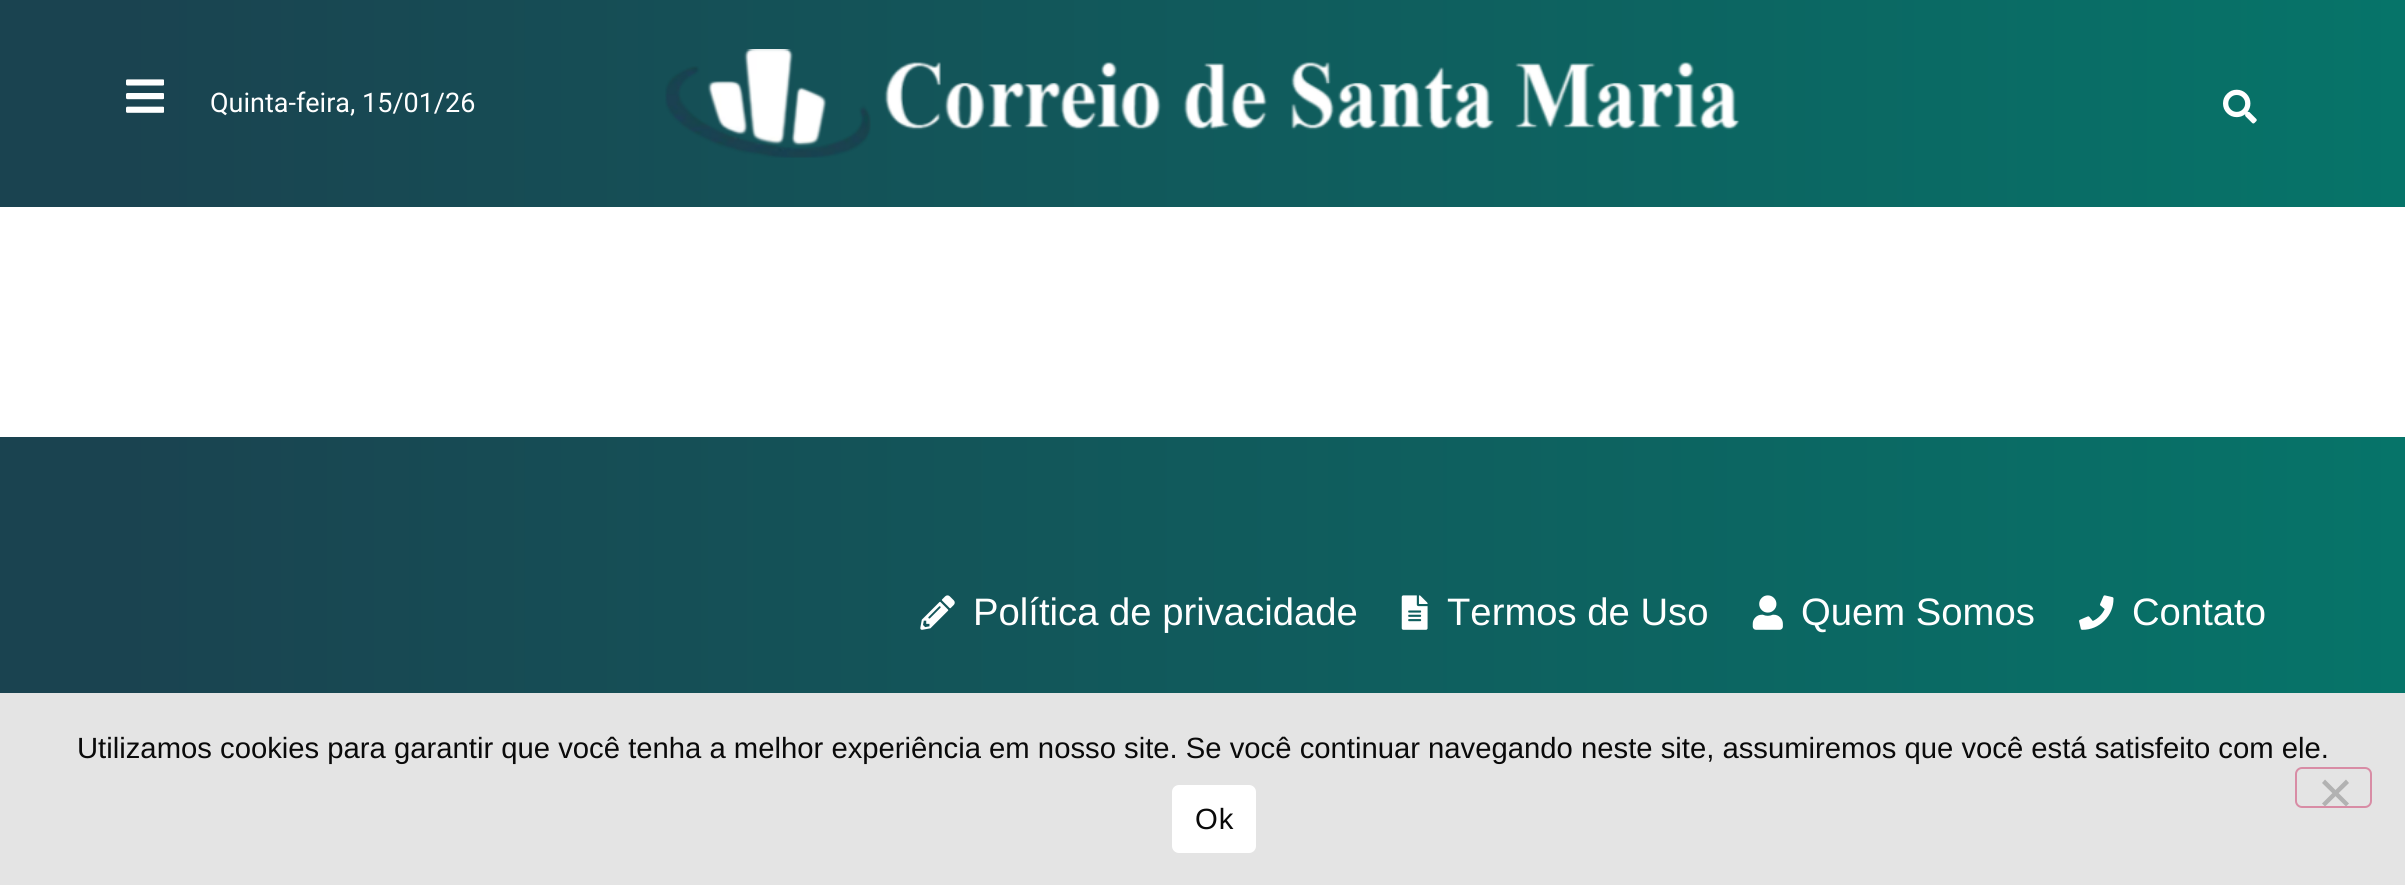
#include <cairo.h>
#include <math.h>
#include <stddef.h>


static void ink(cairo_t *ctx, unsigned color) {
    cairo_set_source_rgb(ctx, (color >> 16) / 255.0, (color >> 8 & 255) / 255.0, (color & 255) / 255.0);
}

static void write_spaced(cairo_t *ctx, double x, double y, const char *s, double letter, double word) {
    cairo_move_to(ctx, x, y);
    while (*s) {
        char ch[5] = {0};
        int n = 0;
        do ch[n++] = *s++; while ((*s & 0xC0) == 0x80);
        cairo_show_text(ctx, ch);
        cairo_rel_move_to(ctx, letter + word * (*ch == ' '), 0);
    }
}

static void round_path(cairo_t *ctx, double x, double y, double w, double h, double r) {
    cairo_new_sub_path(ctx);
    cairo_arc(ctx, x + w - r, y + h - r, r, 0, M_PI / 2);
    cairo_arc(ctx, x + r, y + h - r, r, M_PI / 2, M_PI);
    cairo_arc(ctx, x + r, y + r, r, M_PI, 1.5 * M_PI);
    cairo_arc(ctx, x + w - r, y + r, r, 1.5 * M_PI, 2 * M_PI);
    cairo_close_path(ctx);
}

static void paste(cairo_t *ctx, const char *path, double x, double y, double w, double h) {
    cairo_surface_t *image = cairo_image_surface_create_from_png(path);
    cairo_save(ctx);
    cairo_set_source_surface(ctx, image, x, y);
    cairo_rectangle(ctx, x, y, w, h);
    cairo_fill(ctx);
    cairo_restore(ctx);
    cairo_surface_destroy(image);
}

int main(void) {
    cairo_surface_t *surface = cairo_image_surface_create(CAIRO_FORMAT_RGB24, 2405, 885);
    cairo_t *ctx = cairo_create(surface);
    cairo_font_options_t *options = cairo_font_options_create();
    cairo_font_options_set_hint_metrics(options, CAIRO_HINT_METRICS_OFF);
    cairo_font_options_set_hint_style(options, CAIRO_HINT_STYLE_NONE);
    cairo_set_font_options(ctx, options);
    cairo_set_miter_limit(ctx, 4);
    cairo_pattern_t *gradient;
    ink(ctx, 0xFFFFFF);
    cairo_paint(ctx);
    gradient = cairo_pattern_create_linear(0, 104, 2405, 103);
    cairo_pattern_add_color_stop_rgba(gradient, 0.05, 0.102, 0.263, 0.314, 1);
    cairo_pattern_add_color_stop_rgba(gradient, 1, 0.024, 0.455, 0.412, 1);
    cairo_set_source(ctx, gradient);
    cairo_pattern_destroy(gradient);
    cairo_rectangle(ctx, 0, 0, 2405, 207);
    cairo_fill(ctx);
    paste(ctx, "media/1.png", 126, 79, 38, 34);
    cairo_select_font_face(ctx, "Roboto", CAIRO_FONT_SLANT_NORMAL, CAIRO_FONT_WEIGHT_NORMAL);
    cairo_set_font_size(ctx, 27);
    ink(ctx, 0xFFFFFF);
    cairo_move_to(ctx, 210, 112);
    cairo_show_text(ctx, "Quinta-feira, 15/01/26");
    paste(ctx, "media/2.png", 665, 49, 1075, 109);
    paste(ctx, "media/3.png", 2223, 89, 34, 35);
    gradient = cairo_pattern_create_linear(0, 613, 2405, 613);
    cairo_pattern_add_color_stop_rgba(gradient, 0.05, 0.102, 0.263, 0.314, 1);
    cairo_pattern_add_color_stop_rgba(gradient, 1, 0.024, 0.455, 0.412, 1);
    cairo_set_source(ctx, gradient);
    cairo_pattern_destroy(gradient);
    cairo_rectangle(ctx, 0, 437, 2405, 256);
    cairo_fill(ctx);
    paste(ctx, "media/4.png", 920, 595, 35, 35);
    cairo_select_font_face(ctx, "Liberation Sans", CAIRO_FONT_SLANT_NORMAL, CAIRO_FONT_WEIGHT_NORMAL);
    cairo_set_font_size(ctx, 38.25);
    ink(ctx, 0xFFFFFF);
    cairo_move_to(ctx, 973, 625);
    cairo_show_text(ctx, "Política de privacidade");
    paste(ctx, "media/5.png", 1401, 595, 27, 35);
    cairo_move_to(ctx, 1447, 625);
    cairo_show_text(ctx, "Termos de Uso");
    paste(ctx, "media/6.png", 1752, 595, 31, 35);
    cairo_move_to(ctx, 1801, 625);
    cairo_show_text(ctx, "Quem Somos");
    paste(ctx, "media/7.png", 2079, 595, 35, 35);
    cairo_move_to(ctx, 2132, 625);
    cairo_show_text(ctx, "Contato");
    ink(ctx, 0xE4E4E4);
    cairo_rectangle(ctx, 0, 693, 2405, 192);
    cairo_fill(ctx);
    cairo_set_font_size(ctx, 29.25);
    ink(ctx, 0x0A0A0A);
    cairo_move_to(ctx, 77, 758);
    cairo_show_text(ctx, "Utilizamos cookies para garantir que você tenha a melhor experiência em nosso site. Se você continuar navegando neste site, assumiremos que você está satisfeito com ele.");
    round_path(ctx, 2296, 768, 75, 39, 6);
    ink(ctx, 0xD88CA5);
    cairo_stroke(ctx);
    ink(ctx, 0xB2B2B2);
    cairo_new_path(ctx);
    cairo_move_to(ctx, 2346, 779.5);
    cairo_line_to(ctx, 2349, 783);
    cairo_line_to(ctx, 2325, 806.5);
    cairo_line_to(ctx, 2322, 803.5);
    cairo_close_path(ctx);
    cairo_fill(ctx);
    cairo_new_path(ctx);
    cairo_move_to(ctx, 2322, 783);
    cairo_line_to(ctx, 2325, 779.5);
    cairo_line_to(ctx, 2349, 803.5);
    cairo_line_to(ctx, 2346, 806.5);
    cairo_close_path(ctx);
    cairo_fill(ctx);
    ink(ctx, 0xFFFFFF);
    round_path(ctx, 1172, 785, 84, 68, 7);
    cairo_fill(ctx);
    ink(ctx, 0x0A0A0A);
    write_spaced(ctx, 1195, 829, "Ok", 1, 0);
    cairo_surface_write_to_png(surface, "image.png");
    cairo_font_options_destroy(options);
    cairo_destroy(ctx);
    cairo_surface_destroy(surface);
    return 0;
}
